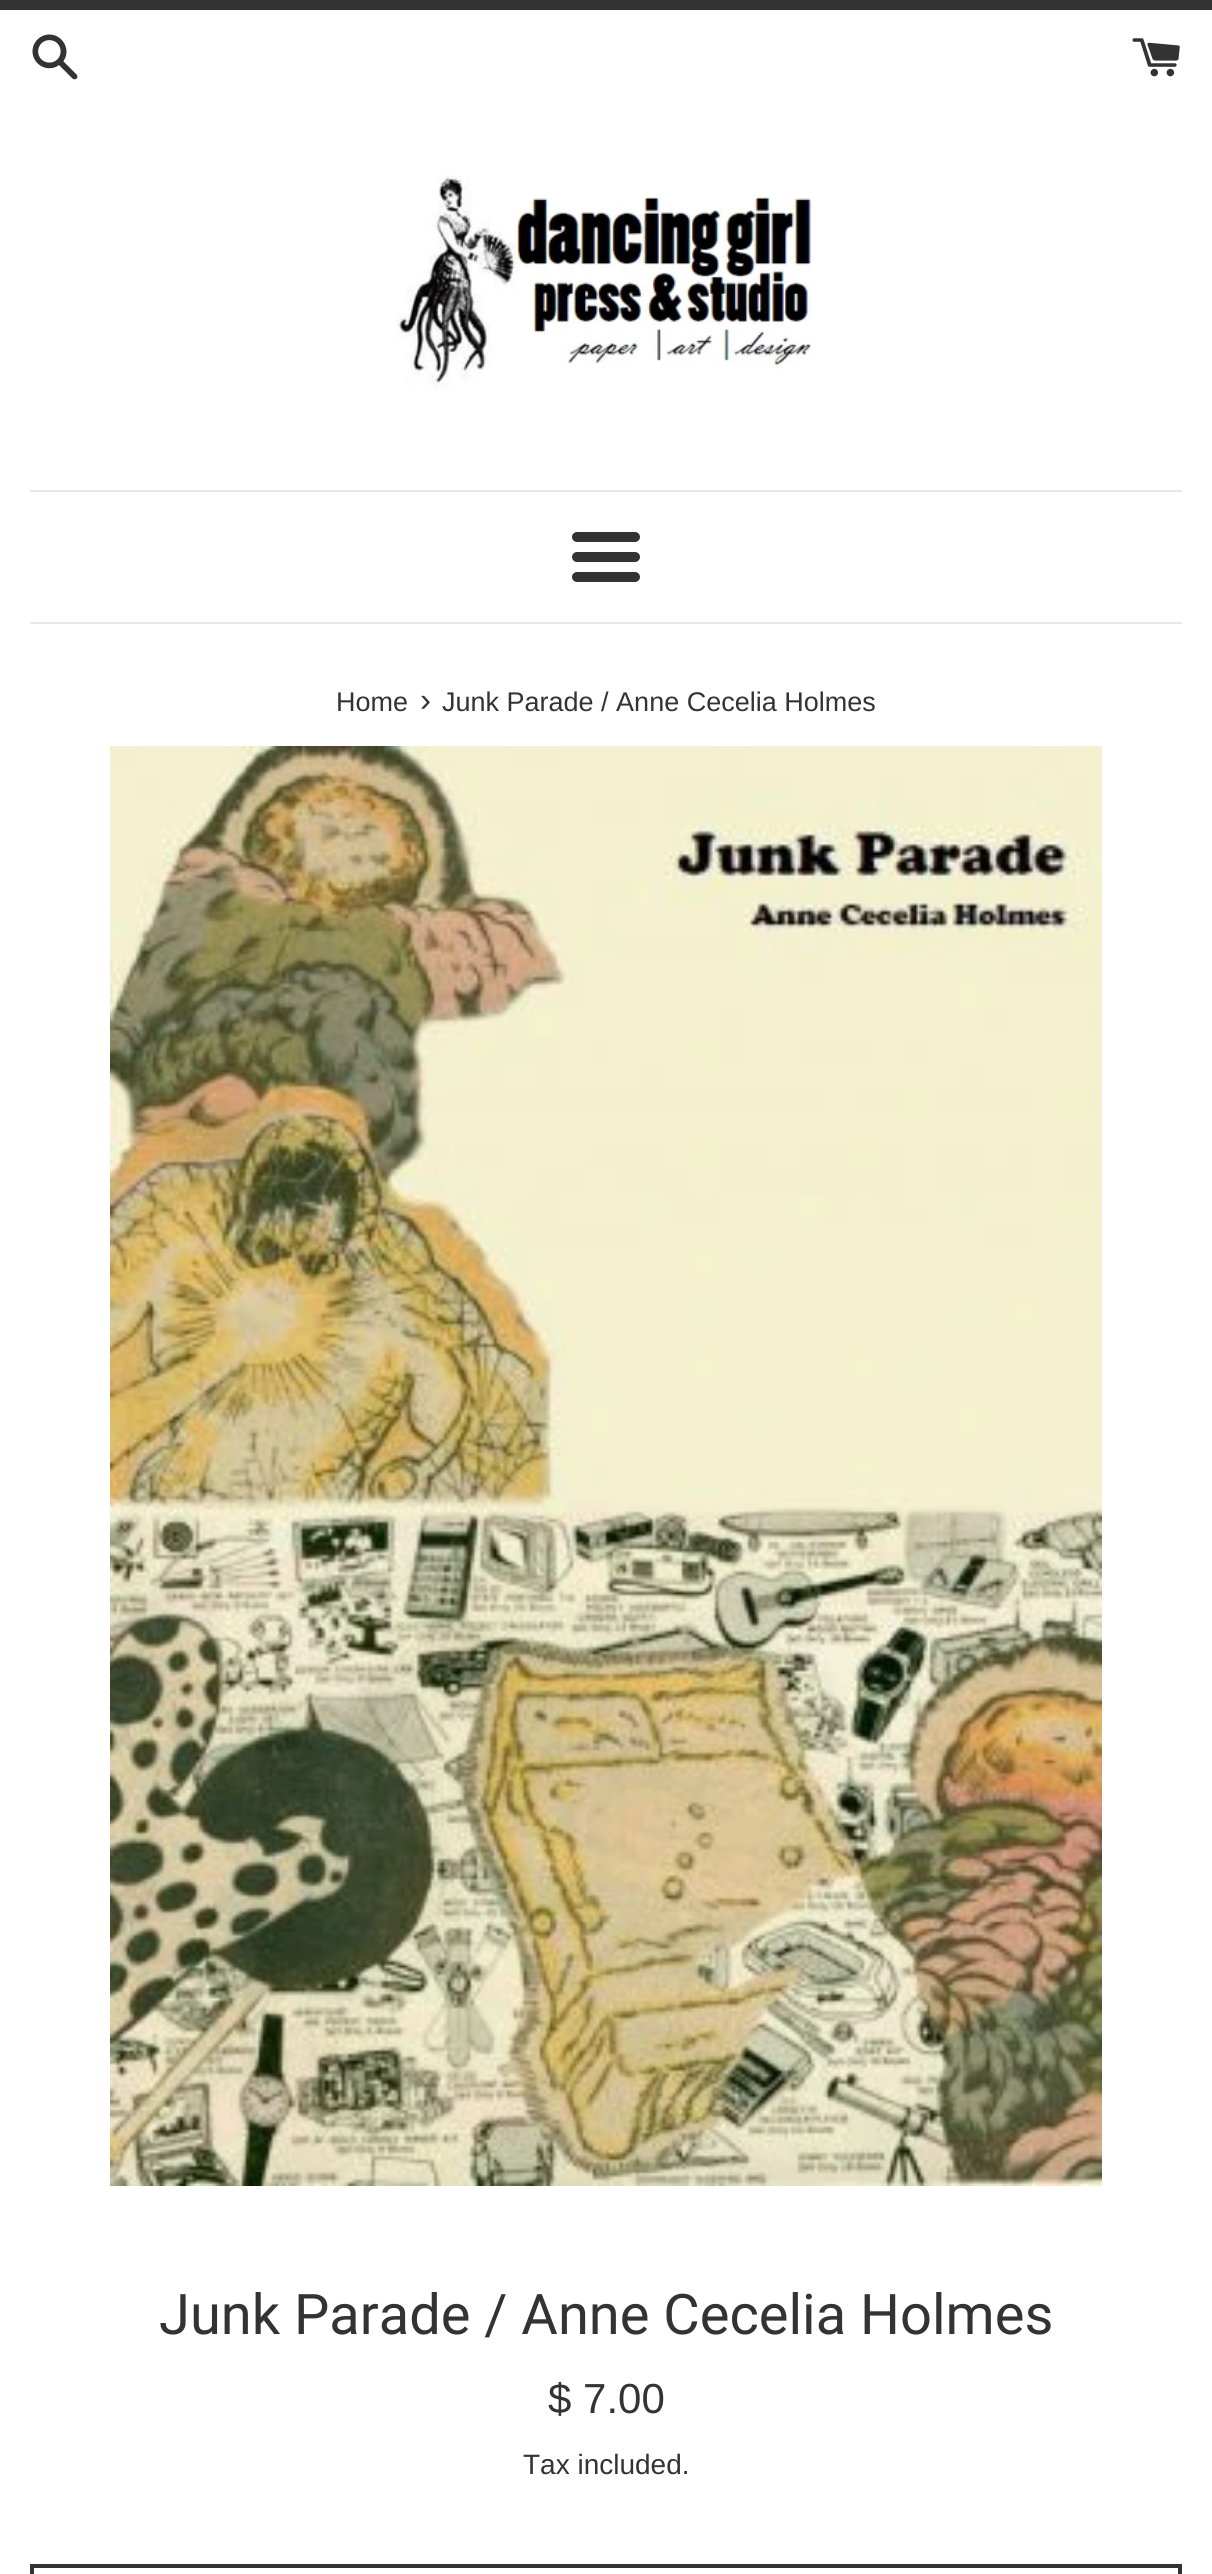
#include <cairo.h>
#include <math.h>
#include <stddef.h>


static void ink(cairo_t *ctx, unsigned color) {
    cairo_set_source_rgb(ctx, (color >> 16) / 255.0, (color >> 8 & 255) / 255.0, (color & 255) / 255.0);
}

static void round_path(cairo_t *ctx, double x, double y, double w, double h, double r) {
    cairo_new_sub_path(ctx);
    cairo_arc(ctx, x + w - r, y + h - r, r, 0, M_PI / 2);
    cairo_arc(ctx, x + r, y + h - r, r, M_PI / 2, M_PI);
    cairo_arc(ctx, x + r, y + r, r, M_PI, 1.5 * M_PI);
    cairo_arc(ctx, x + w - r, y + r, r, 1.5 * M_PI, 2 * M_PI);
    cairo_close_path(ctx);
}

static void paste(cairo_t *ctx, const char *path, double x, double y, double w, double h) {
    cairo_surface_t *image = cairo_image_surface_create_from_png(path);
    cairo_save(ctx);
    cairo_set_source_surface(ctx, image, x, y);
    cairo_rectangle(ctx, x, y, w, h);
    cairo_fill(ctx);
    cairo_restore(ctx);
    cairo_surface_destroy(image);
}

int main(void) {
    cairo_surface_t *surface = cairo_image_surface_create(CAIRO_FORMAT_RGB24, 1212, 2574);
    cairo_t *ctx = cairo_create(surface);
    cairo_font_options_t *options = cairo_font_options_create();
    cairo_font_options_set_hint_metrics(options, CAIRO_HINT_METRICS_OFF);
    cairo_font_options_set_hint_style(options, CAIRO_HINT_STYLE_NONE);
    cairo_set_font_options(ctx, options);
    cairo_set_miter_limit(ctx, 4);
    ink(ctx, 0xFFFFFF);
    cairo_paint(ctx);
    ink(ctx, 0x333333);
    cairo_rectangle(ctx, 0, 0, 1212, 10);
    cairo_fill(ctx);
    paste(ctx, "media/1.png", 32, 34, 46, 46);
    paste(ctx, "media/2.png", 1132, 38, 48, 39);
    paste(ctx, "media/3.png", 396, 175, 417, 214);
    ink(ctx, 0xE8E8E8);
    cairo_rectangle(ctx, 30, 490, 1152, 2);
    cairo_fill(ctx);
    ink(ctx, 0x333333);
    round_path(ctx, 572, 532, 68, 10, 5);
    cairo_fill(ctx);
    round_path(ctx, 572, 552, 68, 10, 5);
    cairo_fill(ctx);
    round_path(ctx, 572, 572, 68, 10, 5);
    cairo_fill(ctx);
    ink(ctx, 0xE8E8E8);
    cairo_rectangle(ctx, 30, 622, 1152, 2);
    cairo_fill(ctx);
    cairo_select_font_face(ctx, "Liberation Sans", CAIRO_FONT_SLANT_NORMAL, CAIRO_FONT_WEIGHT_NORMAL);
    cairo_set_font_size(ctx, 27);
    ink(ctx, 0x333333);
    cairo_move_to(ctx, 336, 711);
    cairo_show_text(ctx, "Home");
    cairo_set_font_size(ctx, 33);
    cairo_move_to(ctx, 420, 711);
    cairo_show_text(ctx, "›");
    cairo_set_font_size(ctx, 27);
    cairo_move_to(ctx, 442, 711);
    cairo_show_text(ctx, "Junk Parade / Anne Cecelia Holmes");
    paste(ctx, "media/4.png", 110, 746, 992, 1440);
    cairo_select_font_face(ctx, "Roboto", CAIRO_FONT_SLANT_NORMAL, CAIRO_FONT_WEIGHT_NORMAL);
    cairo_set_font_size(ctx, 56);
    cairo_move_to(ctx, 159, 2334);
    cairo_show_text(ctx, "Junk Parade / Anne Cecelia Holmes");
    cairo_select_font_face(ctx, "Liberation Sans", CAIRO_FONT_SLANT_NORMAL, CAIRO_FONT_WEIGHT_NORMAL);
    cairo_set_font_size(ctx, 42);
    cairo_move_to(ctx, 548, 2413);
    cairo_show_text(ctx, "$ 7.00");
    cairo_set_font_size(ctx, 28);
    cairo_move_to(ctx, 523, 2474);
    cairo_show_text(ctx, "Tax included.");
    cairo_rectangle(ctx, 32, 2566, 1148, 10);
    cairo_set_line_width(ctx, 4);
    cairo_stroke(ctx);
    cairo_surface_write_to_png(surface, "image.png");
    cairo_font_options_destroy(options);
    cairo_destroy(ctx);
    cairo_surface_destroy(surface);
    return 0;
}
